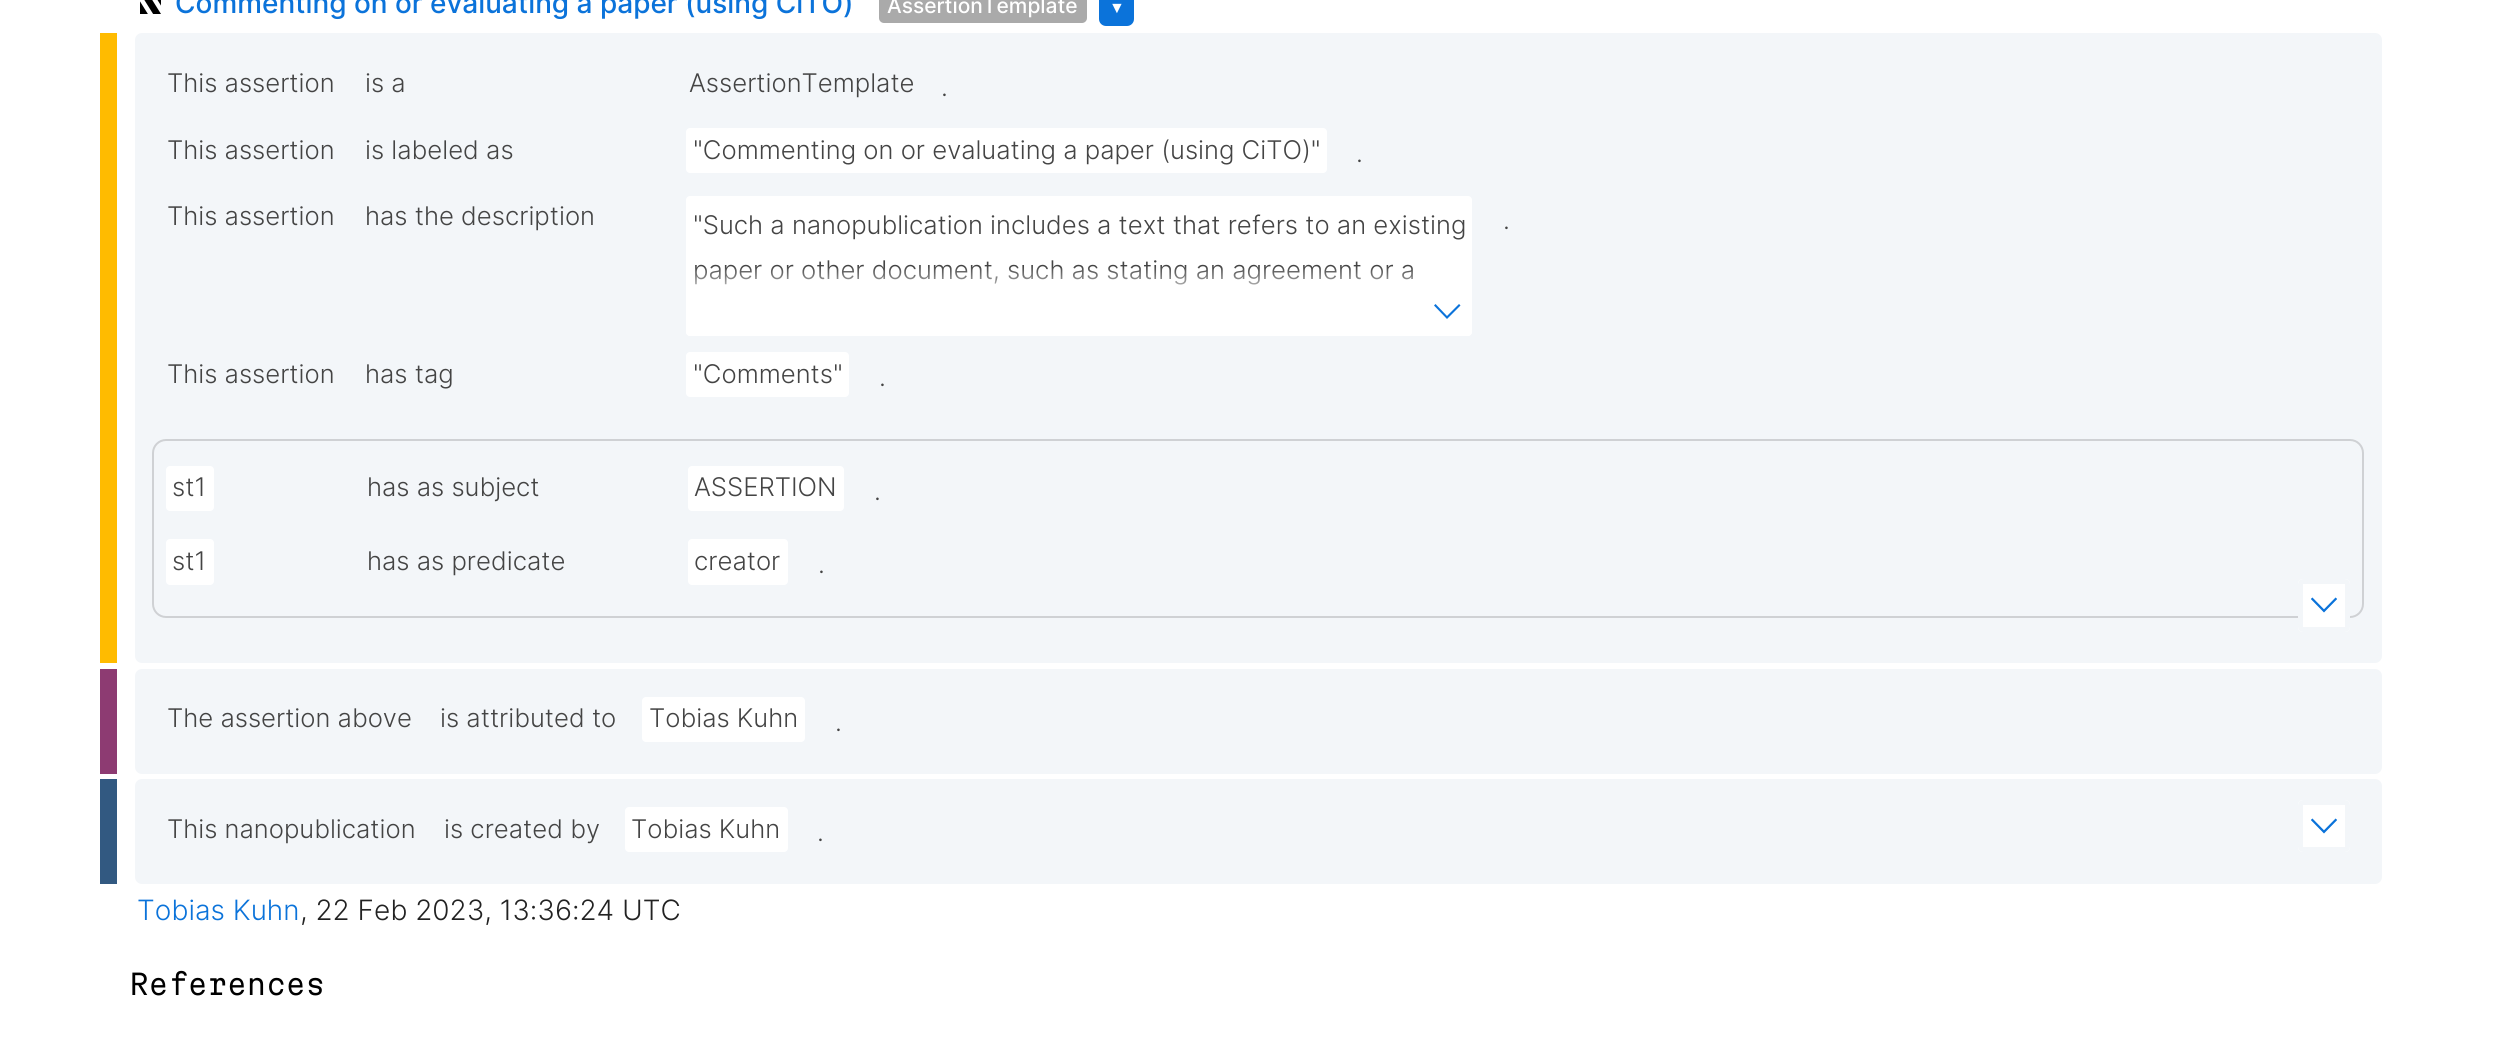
#include <cairo.h>
#include <math.h>
#include <stddef.h>

typedef struct { double x, y; const char *s; } line_t;

static void ink(cairo_t *ctx, unsigned color) {
    cairo_set_source_rgb(ctx, (color >> 16) / 255.0, (color >> 8 & 255) / 255.0, (color & 255) / 255.0);
}

static void round_path(cairo_t *ctx, double x, double y, double w, double h, double r) {
    cairo_new_sub_path(ctx);
    cairo_arc(ctx, x + w - r, y + h - r, r, 0, M_PI / 2);
    cairo_arc(ctx, x + r, y + h - r, r, M_PI / 2, M_PI);
    cairo_arc(ctx, x + r, y + r, r, M_PI, 1.5 * M_PI);
    cairo_arc(ctx, x + w - r, y + r, r, 1.5 * M_PI, 2 * M_PI);
    cairo_close_path(ctx);
}

static void paste(cairo_t *ctx, const char *path, double x, double y, double w, double h) {
    cairo_surface_t *image = cairo_image_surface_create_from_png(path);
    cairo_save(ctx);
    cairo_set_source_surface(ctx, image, x, y);
    cairo_rectangle(ctx, x, y, w, h);
    cairo_fill(ctx);
    cairo_restore(ctx);
    cairo_surface_destroy(image);
}

int main(void) {
    cairo_surface_t *surface = cairo_image_surface_create(CAIRO_FORMAT_RGB24, 2514, 1038);
    cairo_t *ctx = cairo_create(surface);
    cairo_font_options_t *options = cairo_font_options_create();
    cairo_font_options_set_hint_metrics(options, CAIRO_HINT_METRICS_OFF);
    cairo_font_options_set_hint_style(options, CAIRO_HINT_STYLE_NONE);
    cairo_set_font_options(ctx, options);
    cairo_set_miter_limit(ctx, 4);
    cairo_pattern_t *gradient;
    ink(ctx, 0xFFFFFF);
    cairo_paint(ctx);
    paste(ctx, "media/1.png", 140, 0, 21, 14);
    cairo_select_font_face(ctx, "Inter Medium", CAIRO_FONT_SLANT_NORMAL, CAIRO_FONT_WEIGHT_NORMAL);
    cairo_set_font_size(ctx, 28);
    ink(ctx, 0x0B73DA);
    cairo_move_to(ctx, 175, 13);
    cairo_show_text(ctx, "Commenting on or evaluating a paper (using CiTO)");
    ink(ctx, 0xAAAAAA);
    round_path(ctx, 879, -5, 208, 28, 5);
    cairo_fill(ctx);
    cairo_set_font_size(ctx, 21);
    ink(ctx, 0xFFFFFF);
    cairo_move_to(ctx, 887, 13);
    cairo_show_text(ctx, "AssertionTemplate");
    ink(ctx, 0x0B73DA);
    round_path(ctx, 1099, -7, 35, 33, 7);
    cairo_fill(ctx);
    cairo_select_font_face(ctx, "Liberation Sans", CAIRO_FONT_SLANT_NORMAL, CAIRO_FONT_WEIGHT_BOLD);
    cairo_set_font_size(ctx, 16);
    ink(ctx, 0xFFFFFF);
    cairo_move_to(ctx, 1109, 13);
    cairo_show_text(ctx, "▼");
    ink(ctx, 0xFFBB00);
    cairo_rectangle(ctx, 100, 33, 17, 630);
    cairo_fill(ctx);
    ink(ctx, 0xF3F6F9);
    round_path(ctx, 135, 33, 2247, 630, 7);
    cairo_fill(ctx);
    cairo_select_font_face(ctx, "Inter Light", CAIRO_FONT_SLANT_NORMAL, CAIRO_FONT_WEIGHT_NORMAL);
    cairo_set_font_size(ctx, 25.7);
    ink(ctx, 0x444444);
    {
        static const line_t items[] = {
            {167, 92, "This assertion"},
            {365, 92, "is a"},
            {689, 92, "AssertionTemplate"},
            {941, 96, "."},
            {167, 159, "This assertion"},
            {365, 159, "is labeled as"},
        };
        for (size_t i = 0; i < sizeof items / sizeof *items; i++) {
            cairo_move_to(ctx, items[i].x, items[i].y);
            cairo_show_text(ctx, items[i].s);
        }
    }
    ink(ctx, 0xFFFFFF);
    round_path(ctx, 686, 128, 641, 45, 4);
    cairo_fill(ctx);
    ink(ctx, 0x444444);
    {
        static const line_t items[] = {
            {693, 159, "\"Commenting on or evaluating a paper (using CiTO)\""},
            {1356, 162, "."},
            {167, 225, "This assertion"},
            {365, 225, "has the description"},
        };
        for (size_t i = 0; i < sizeof items / sizeof *items; i++) {
            cairo_move_to(ctx, items[i].x, items[i].y);
            cairo_show_text(ctx, items[i].s);
        }
    }
    ink(ctx, 0xFFFFFF);
    round_path(ctx, 686, 196, 786, 140, 4);
    cairo_fill(ctx);
    ink(ctx, 0x444444);
    cairo_move_to(ctx, 693, 234);
    cairo_show_text(ctx, "\"Such a nanopublication includes a text that refers to an existing");
    cairo_move_to(ctx, 693, 279);
    cairo_show_text(ctx, "paper or other document, such as stating an agreement or a");
    gradient = cairo_pattern_create_linear(1079, 266, 1079, 336);
    cairo_pattern_add_color_stop_rgba(gradient, 0, 1, 1, 1, 0);
    cairo_pattern_add_color_stop_rgba(gradient, 0.5, 1, 1, 1, 1);
    cairo_set_source(ctx, gradient);
    cairo_pattern_destroy(gradient);
    cairo_new_path(ctx);
    cairo_move_to(ctx, 686, 266);
    cairo_line_to(ctx, 1472, 266);
    cairo_line_to(ctx, 1472, 332);
    cairo_curve_to(ctx, 1472, 334, 1470, 336, 1468, 336);
    cairo_line_to(ctx, 690, 336);
    cairo_curve_to(ctx, 688, 336, 686, 334, 686, 332);
    cairo_close_path(ctx);
    cairo_fill(ctx);
    ink(ctx, 0x0B73DA);
    cairo_new_path(ctx);
    cairo_move_to(ctx, 1459, 304);
    cairo_line_to(ctx, 1460.5, 305.5);
    cairo_line_to(ctx, 1447, 319);
    cairo_line_to(ctx, 1434, 305.5);
    cairo_line_to(ctx, 1435.5, 304);
    cairo_line_to(ctx, 1447, 316);
    cairo_close_path(ctx);
    cairo_fill(ctx);
    ink(ctx, 0x444444);
    {
        static const line_t items[] = {
            {1503, 229, "."},
            {167, 383, "This assertion"},
            {365, 383, "has tag"},
        };
        for (size_t i = 0; i < sizeof items / sizeof *items; i++) {
            cairo_move_to(ctx, items[i].x, items[i].y);
            cairo_show_text(ctx, items[i].s);
        }
    }
    ink(ctx, 0xFFFFFF);
    round_path(ctx, 686, 352, 163, 45, 4);
    cairo_fill(ctx);
    ink(ctx, 0x444444);
    cairo_move_to(ctx, 693, 383);
    cairo_show_text(ctx, "\"Comments\"");
    cairo_move_to(ctx, 879, 386);
    cairo_show_text(ctx, ".");
    round_path(ctx, 153, 440, 2210, 177, 13);
    ink(ctx, 0xCFD1D4);
    cairo_stroke(ctx);
    ink(ctx, 0xFFFFFF);
    round_path(ctx, 166, 466, 48, 45, 4);
    cairo_fill(ctx);
    ink(ctx, 0x444444);
    cairo_move_to(ctx, 172, 496);
    cairo_show_text(ctx, "st1");
    cairo_move_to(ctx, 367, 496);
    cairo_show_text(ctx, "has as subject");
    ink(ctx, 0xFFFFFF);
    round_path(ctx, 688, 466, 156, 45, 4);
    cairo_fill(ctx);
    ink(ctx, 0x444444);
    cairo_move_to(ctx, 694, 496);
    cairo_show_text(ctx, "ASSERTION");
    cairo_move_to(ctx, 874, 500);
    cairo_show_text(ctx, ".");
    ink(ctx, 0xFFFFFF);
    round_path(ctx, 166, 539, 48, 46, 4);
    cairo_fill(ctx);
    ink(ctx, 0x444444);
    cairo_move_to(ctx, 172, 570);
    cairo_show_text(ctx, "st1");
    cairo_move_to(ctx, 367, 570);
    cairo_show_text(ctx, "has as predicate");
    ink(ctx, 0xFFFFFF);
    round_path(ctx, 688, 539, 100, 46, 4);
    cairo_fill(ctx);
    ink(ctx, 0x444444);
    cairo_move_to(ctx, 694, 570);
    cairo_show_text(ctx, "creator");
    cairo_move_to(ctx, 818, 573);
    cairo_show_text(ctx, ".");
    ink(ctx, 0xFFFFFF);
    round_path(ctx, 2298, 579, 52, 53, 5);
    cairo_fill(ctx);
    paste(ctx, "media/2.png", 2311, 597, 26, 16);
    round_path(ctx, 2300.5, 581.5, 47, 48, 2.5);
    ink(ctx, 0xF3F6F9);
    cairo_set_line_width(ctx, 5);
    cairo_stroke(ctx);
    ink(ctx, 0x8D3B72);
    cairo_rectangle(ctx, 100, 669, 17, 105);
    cairo_fill(ctx);
    ink(ctx, 0xF3F6F9);
    round_path(ctx, 135, 669, 2247, 105, 7);
    cairo_fill(ctx);
    ink(ctx, 0x444444);
    cairo_move_to(ctx, 167, 727);
    cairo_show_text(ctx, "The assertion above");
    cairo_move_to(ctx, 440, 727);
    cairo_show_text(ctx, "is attributed to");
    ink(ctx, 0xFFFFFF);
    round_path(ctx, 642, 697, 163, 45, 4);
    cairo_fill(ctx);
    ink(ctx, 0x444444);
    cairo_move_to(ctx, 649, 727);
    cairo_show_text(ctx, "Tobias Kuhn");
    cairo_move_to(ctx, 835, 731);
    cairo_show_text(ctx, ".");
    ink(ctx, 0x325981);
    cairo_rectangle(ctx, 100, 779, 17, 105);
    cairo_fill(ctx);
    ink(ctx, 0xF3F6F9);
    round_path(ctx, 135, 779, 2247, 105, 7);
    cairo_fill(ctx);
    ink(ctx, 0x444444);
    cairo_move_to(ctx, 167, 838);
    cairo_show_text(ctx, "This nanopublication");
    cairo_move_to(ctx, 444, 838);
    cairo_show_text(ctx, "is created by");
    ink(ctx, 0xFFFFFF);
    round_path(ctx, 625, 807, 163, 45, 4);
    cairo_fill(ctx);
    ink(ctx, 0x444444);
    cairo_move_to(ctx, 631, 838);
    cairo_show_text(ctx, "Tobias Kuhn");
    cairo_move_to(ctx, 817, 841);
    cairo_show_text(ctx, ".");
    ink(ctx, 0xFFFFFF);
    round_path(ctx, 2298, 800, 52, 52, 5);
    cairo_fill(ctx);
    paste(ctx, "media/2.png", 2311, 818, 26, 16);
    round_path(ctx, 2300.5, 802.5, 47, 47, 2.5);
    ink(ctx, 0xF3F6F9);
    cairo_stroke(ctx);
    cairo_set_font_size(ctx, 28);
    ink(ctx, 0x0B73DA);
    cairo_move_to(ctx, 137, 920);
    cairo_show_text(ctx, "Tobias Kuhn");
    ink(ctx, 0x222222);
    cairo_move_to(ctx, 300, 920);
    cairo_show_text(ctx, ", 22 Feb 2023, 13:36:24 UTC");
    cairo_select_font_face(ctx, "Martian Mono Light", CAIRO_FONT_SLANT_NORMAL, CAIRO_FONT_WEIGHT_NORMAL);
    ink(ctx, 0x000000);
    cairo_move_to(ctx, 129, 995);
    cairo_show_text(ctx, "References");
    cairo_surface_write_to_png(surface, "image.png");
    cairo_font_options_destroy(options);
    cairo_destroy(ctx);
    cairo_surface_destroy(surface);
    return 0;
}
